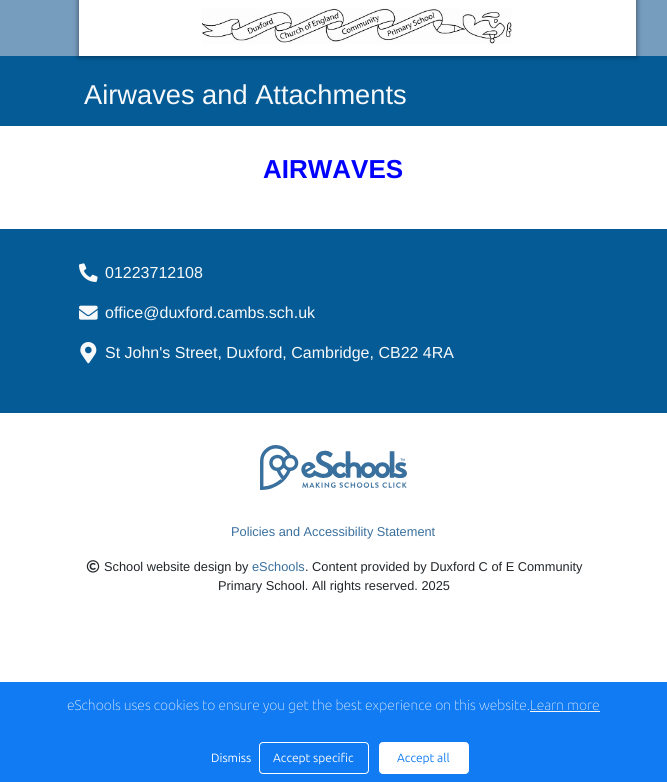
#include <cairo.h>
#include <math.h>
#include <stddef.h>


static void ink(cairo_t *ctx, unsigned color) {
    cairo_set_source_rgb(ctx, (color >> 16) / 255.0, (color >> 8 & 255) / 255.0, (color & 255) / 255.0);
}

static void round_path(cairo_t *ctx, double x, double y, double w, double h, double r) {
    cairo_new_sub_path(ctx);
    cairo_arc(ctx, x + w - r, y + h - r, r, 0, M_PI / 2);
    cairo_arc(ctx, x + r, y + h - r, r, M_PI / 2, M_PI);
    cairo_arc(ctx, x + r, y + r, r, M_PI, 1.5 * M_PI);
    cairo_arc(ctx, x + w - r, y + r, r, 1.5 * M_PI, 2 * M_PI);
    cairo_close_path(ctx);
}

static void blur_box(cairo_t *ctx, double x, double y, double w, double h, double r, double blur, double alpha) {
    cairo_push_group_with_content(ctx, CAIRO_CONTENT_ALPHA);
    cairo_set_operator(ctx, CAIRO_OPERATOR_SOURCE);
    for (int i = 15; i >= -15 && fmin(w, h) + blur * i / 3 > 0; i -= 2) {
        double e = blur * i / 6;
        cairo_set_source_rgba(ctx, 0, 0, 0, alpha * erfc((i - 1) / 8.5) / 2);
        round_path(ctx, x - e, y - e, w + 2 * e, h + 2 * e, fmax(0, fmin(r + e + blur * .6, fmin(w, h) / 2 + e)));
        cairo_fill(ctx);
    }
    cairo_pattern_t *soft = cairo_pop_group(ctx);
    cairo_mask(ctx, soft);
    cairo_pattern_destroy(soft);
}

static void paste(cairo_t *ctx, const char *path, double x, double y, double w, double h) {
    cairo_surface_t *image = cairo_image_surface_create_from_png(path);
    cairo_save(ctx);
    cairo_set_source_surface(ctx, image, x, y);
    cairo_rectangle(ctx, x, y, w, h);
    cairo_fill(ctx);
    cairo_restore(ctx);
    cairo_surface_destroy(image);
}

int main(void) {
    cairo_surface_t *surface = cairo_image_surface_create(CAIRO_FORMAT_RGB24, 667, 782);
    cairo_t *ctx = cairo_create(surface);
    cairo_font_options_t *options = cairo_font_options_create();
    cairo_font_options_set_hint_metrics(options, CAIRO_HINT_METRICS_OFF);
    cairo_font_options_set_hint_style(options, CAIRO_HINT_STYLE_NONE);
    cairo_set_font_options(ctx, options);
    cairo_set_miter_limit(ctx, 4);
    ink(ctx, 0xFFFFFF);
    cairo_paint(ctx);
    ink(ctx, 0x769CBE);
    cairo_rectangle(ctx, 0, 0, 667, 56);
    cairo_fill(ctx);
    ink(ctx, 0x045B96);
    cairo_rectangle(ctx, 0, 56, 667, 70);
    cairo_fill(ctx);
    ink(ctx, 0x000000);
    blur_box(ctx, 78, -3, 559, 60, 0, 2.5, 0.4);
    ink(ctx, 0xFFFFFF);
    cairo_rectangle(ctx, 79, 0, 557, 56);
    cairo_fill(ctx);
    paste(ctx, "media/1.png", 201, 8, 311, 36);
    cairo_select_font_face(ctx, "Liberation Sans", CAIRO_FONT_SLANT_NORMAL, CAIRO_FONT_WEIGHT_NORMAL);
    cairo_set_font_size(ctx, 27.25);
    ink(ctx, 0xF8F9FA);
    cairo_move_to(ctx, 84, 104);
    cairo_show_text(ctx, "Airwaves and Attachments");
    cairo_select_font_face(ctx, "Liberation Sans", CAIRO_FONT_SLANT_NORMAL, CAIRO_FONT_WEIGHT_BOLD);
    cairo_set_font_size(ctx, 26);
    ink(ctx, 0x0000FF);
    cairo_move_to(ctx, 263, 178);
    cairo_show_text(ctx, "AIRWAVES");
    ink(ctx, 0x045B96);
    cairo_rectangle(ctx, 0, 229, 667, 184);
    cairo_fill(ctx);
    paste(ctx, "media/2.png", 79, 263, 19, 19);
    cairo_select_font_face(ctx, "Liberation Sans", CAIRO_FONT_SLANT_NORMAL, CAIRO_FONT_WEIGHT_NORMAL);
    cairo_set_font_size(ctx, 16);
    ink(ctx, 0xF8F9FA);
    cairo_move_to(ctx, 105, 278);
    cairo_show_text(ctx, "01223712108");
    paste(ctx, "media/3.png", 79, 305, 19, 15);
    cairo_move_to(ctx, 105, 318);
    cairo_show_text(ctx, "office@duxford.cambs.sch.uk");
    paste(ctx, "media/4.png", 80, 342, 17, 22);
    cairo_move_to(ctx, 105, 358);
    cairo_show_text(ctx, "St John's Street, Duxford, Cambridge, CB22 4RA");
    paste(ctx, "media/5.png", 260, 445, 147, 45);
    cairo_set_font_size(ctx, 12.8);
    ink(ctx, 0x396F9D);
    cairo_move_to(ctx, 231, 536);
    cairo_show_text(ctx, "Policies and Accessibility Statement");
    paste(ctx, "media/6.png", 86, 560, 14, 13);
    ink(ctx, 0x212529);
    cairo_move_to(ctx, 104, 571);
    cairo_show_text(ctx, "School website design by");
    ink(ctx, 0x396F9D);
    cairo_move_to(ctx, 252, 571);
    cairo_show_text(ctx, "eSchools");
    ink(ctx, 0x212529);
    cairo_move_to(ctx, 305, 571);
    cairo_show_text(ctx, ". Content provided by Duxford C of E Community");
    cairo_move_to(ctx, 218, 590);
    cairo_show_text(ctx, "Primary School. All rights reserved. 2025");
    ink(ctx, 0x117BF3);
    cairo_rectangle(ctx, 0, 682, 667, 100);
    cairo_fill(ctx);
    cairo_select_font_face(ctx, "Ubuntu Thin", CAIRO_FONT_SLANT_NORMAL, CAIRO_FONT_WEIGHT_NORMAL);
    cairo_set_font_size(ctx, 14);
    ink(ctx, 0xFFFFFF);
    cairo_move_to(ctx, 67, 710);
    cairo_show_text(ctx, "eSchools uses cookies to ensure you get the best experience on this website.");
    ink(ctx, 0xF7F7F7);
    cairo_rectangle(ctx, 530, 711, 70, 1);
    cairo_fill(ctx);
    ink(ctx, 0xF8F9FA);
    cairo_move_to(ctx, 530, 710);
    cairo_show_text(ctx, "Learn more");
    cairo_select_font_face(ctx, "Ubuntu", CAIRO_FONT_SLANT_NORMAL, CAIRO_FONT_WEIGHT_NORMAL);
    cairo_set_font_size(ctx, 12);
    ink(ctx, 0xFFFFFF);
    cairo_move_to(ctx, 211, 762);
    cairo_show_text(ctx, "Dismiss");
    round_path(ctx, 259.5, 742.5, 109, 31, 3.5);
    cairo_set_line_width(ctx, 1);
    cairo_stroke(ctx);
    ink(ctx, 0xF8F9FA);
    cairo_move_to(ctx, 273, 762);
    cairo_show_text(ctx, "Accept specific");
    ink(ctx, 0xFFFFFF);
    round_path(ctx, 379.5, 742.5, 89, 31, 3.5);
    cairo_fill_preserve(ctx);
    cairo_stroke(ctx);
    ink(ctx, 0x117BF3);
    cairo_move_to(ctx, 397, 762);
    cairo_show_text(ctx, "Accept all");
    cairo_surface_write_to_png(surface, "image.png");
    cairo_font_options_destroy(options);
    cairo_destroy(ctx);
    cairo_surface_destroy(surface);
    return 0;
}
